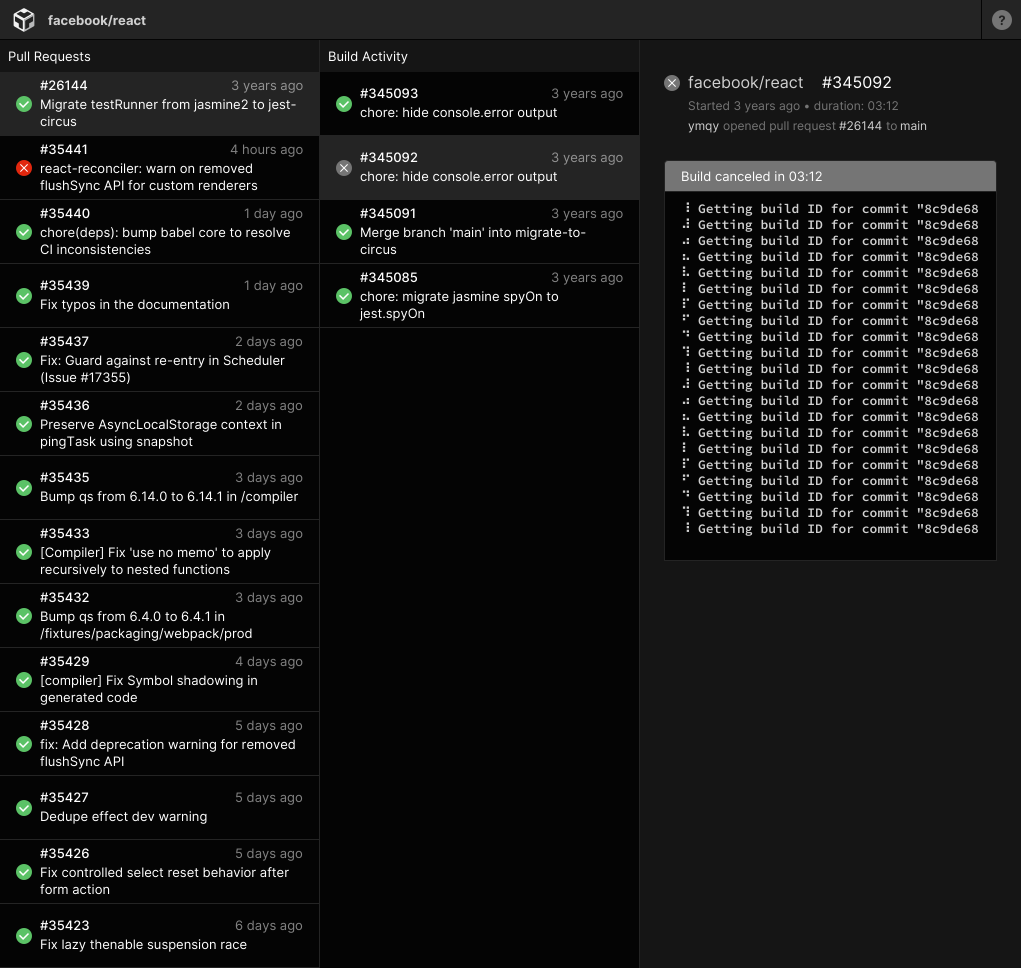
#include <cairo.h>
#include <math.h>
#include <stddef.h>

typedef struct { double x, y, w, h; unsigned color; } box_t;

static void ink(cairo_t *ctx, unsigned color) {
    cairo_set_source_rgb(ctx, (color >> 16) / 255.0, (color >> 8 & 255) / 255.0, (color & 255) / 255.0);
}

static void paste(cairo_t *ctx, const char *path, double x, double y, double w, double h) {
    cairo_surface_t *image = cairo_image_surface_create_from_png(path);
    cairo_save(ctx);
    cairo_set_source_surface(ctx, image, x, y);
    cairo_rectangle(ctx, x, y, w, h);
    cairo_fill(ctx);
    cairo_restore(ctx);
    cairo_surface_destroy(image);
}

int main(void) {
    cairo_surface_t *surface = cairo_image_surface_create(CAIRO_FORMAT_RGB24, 1021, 968);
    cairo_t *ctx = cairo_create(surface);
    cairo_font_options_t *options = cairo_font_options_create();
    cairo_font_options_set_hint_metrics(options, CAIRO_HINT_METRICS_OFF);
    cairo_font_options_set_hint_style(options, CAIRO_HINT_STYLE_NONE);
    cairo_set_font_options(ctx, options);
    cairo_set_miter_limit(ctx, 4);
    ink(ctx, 0x040404);
    cairo_paint(ctx);
    ink(ctx, 0x242424);
    cairo_rectangle(ctx, 0, 0, 1021, 39);
    cairo_fill(ctx);
    paste(ctx, "media/1.png", 13, 8, 22, 24);
    cairo_select_font_face(ctx, "Inter", CAIRO_FONT_SLANT_NORMAL, CAIRO_FONT_WEIGHT_BOLD);
    cairo_set_font_size(ctx, 13);
    ink(ctx, 0xD0D0D0);
    cairo_move_to(ctx, 48, 25);
    cairo_show_text(ctx, "facebook/react");
    ink(ctx, 0x040404);
    cairo_rectangle(ctx, 981, 0, 1, 39);
    cairo_fill(ctx);
    paste(ctx, "media/2.png", 992, 10, 20, 20);
    ink(ctx, 0x242424);
    cairo_rectangle(ctx, 319, 40, 1, 928);
    cairo_fill(ctx);
    ink(ctx, 0x151515);
    cairo_rectangle(ctx, 0, 40, 319, 32);
    cairo_fill(ctx);
    cairo_select_font_face(ctx, "Inter", CAIRO_FONT_SLANT_NORMAL, CAIRO_FONT_WEIGHT_NORMAL);
    ink(ctx, 0xFFFFFF);
    cairo_move_to(ctx, 8, 61);
    cairo_show_text(ctx, "Pull Requests");
    ink(ctx, 0x242424);
    cairo_rectangle(ctx, 0, 72, 319, 64);
    cairo_fill(ctx);
    paste(ctx, "media/3.png", 16, 96, 16, 16);
    cairo_select_font_face(ctx, "Inter Medium", CAIRO_FONT_SLANT_NORMAL, CAIRO_FONT_WEIGHT_NORMAL);
    ink(ctx, 0xFFFFFF);
    cairo_move_to(ctx, 40, 90);
    cairo_show_text(ctx, "#26144");
    cairo_select_font_face(ctx, "Inter", CAIRO_FONT_SLANT_NORMAL, CAIRO_FONT_WEIGHT_NORMAL);
    ink(ctx, 0x929292);
    cairo_move_to(ctx, 231, 90);
    cairo_show_text(ctx, "3 years ago");
    ink(ctx, 0xFFFFFF);
    cairo_move_to(ctx, 40, 109);
    cairo_show_text(ctx, "Migrate testRunner from jasmine2 to jest-");
    cairo_move_to(ctx, 40, 126);
    cairo_show_text(ctx, "circus");
    ink(ctx, 0x242424);
    cairo_rectangle(ctx, 0, 199, 319, 1);
    cairo_fill(ctx);
    paste(ctx, "media/4.png", 16, 160, 16, 16);
    cairo_select_font_face(ctx, "Inter Medium", CAIRO_FONT_SLANT_NORMAL, CAIRO_FONT_WEIGHT_NORMAL);
    ink(ctx, 0xFFFFFF);
    cairo_move_to(ctx, 40, 154);
    cairo_show_text(ctx, "#35441");
    cairo_select_font_face(ctx, "Inter", CAIRO_FONT_SLANT_NORMAL, CAIRO_FONT_WEIGHT_NORMAL);
    ink(ctx, 0x828282);
    cairo_move_to(ctx, 230, 154);
    cairo_show_text(ctx, "4 hours ago");
    ink(ctx, 0xFFFFFF);
    cairo_move_to(ctx, 40, 173);
    cairo_show_text(ctx, "react-reconciler: warn on removed");
    cairo_move_to(ctx, 40, 190);
    cairo_show_text(ctx, "flushSync API for custom renderers");
    ink(ctx, 0x242424);
    cairo_rectangle(ctx, 0, 263, 319, 1);
    cairo_fill(ctx);
    paste(ctx, "media/5.png", 16, 224, 16, 16);
    cairo_select_font_face(ctx, "Inter Medium", CAIRO_FONT_SLANT_NORMAL, CAIRO_FONT_WEIGHT_NORMAL);
    ink(ctx, 0xFFFFFF);
    cairo_move_to(ctx, 40, 218);
    cairo_show_text(ctx, "#35440");
    cairo_select_font_face(ctx, "Inter", CAIRO_FONT_SLANT_NORMAL, CAIRO_FONT_WEIGHT_NORMAL);
    ink(ctx, 0x828282);
    cairo_move_to(ctx, 244, 218);
    cairo_show_text(ctx, "1 day ago");
    ink(ctx, 0xFFFFFF);
    cairo_move_to(ctx, 40, 237);
    cairo_show_text(ctx, "chore(deps): bump babel core to resolve");
    cairo_move_to(ctx, 40, 254);
    cairo_show_text(ctx, "CI inconsistencies");
    ink(ctx, 0x242424);
    cairo_rectangle(ctx, 0, 327, 319, 1);
    cairo_fill(ctx);
    paste(ctx, "media/5.png", 16, 288, 16, 16);
    cairo_select_font_face(ctx, "Inter Medium", CAIRO_FONT_SLANT_NORMAL, CAIRO_FONT_WEIGHT_NORMAL);
    ink(ctx, 0xFFFFFF);
    cairo_move_to(ctx, 40, 290);
    cairo_show_text(ctx, "#35439");
    cairo_select_font_face(ctx, "Inter", CAIRO_FONT_SLANT_NORMAL, CAIRO_FONT_WEIGHT_NORMAL);
    ink(ctx, 0x828282);
    cairo_move_to(ctx, 244, 290);
    cairo_show_text(ctx, "1 day ago");
    ink(ctx, 0xFFFFFF);
    cairo_move_to(ctx, 40, 309);
    cairo_show_text(ctx, "Fix typos in the documentation");
    ink(ctx, 0x242424);
    cairo_rectangle(ctx, 0, 391, 319, 1);
    cairo_fill(ctx);
    paste(ctx, "media/5.png", 16, 352, 16, 16);
    cairo_select_font_face(ctx, "Inter Medium", CAIRO_FONT_SLANT_NORMAL, CAIRO_FONT_WEIGHT_NORMAL);
    ink(ctx, 0xFFFFFF);
    cairo_move_to(ctx, 40, 346);
    cairo_show_text(ctx, "#35437");
    cairo_select_font_face(ctx, "Inter", CAIRO_FONT_SLANT_NORMAL, CAIRO_FONT_WEIGHT_NORMAL);
    ink(ctx, 0x828282);
    cairo_move_to(ctx, 235, 346);
    cairo_show_text(ctx, "2 days ago");
    ink(ctx, 0xFFFFFF);
    cairo_move_to(ctx, 40, 365);
    cairo_show_text(ctx, "Fix: Guard against re-entry in Scheduler");
    cairo_move_to(ctx, 40, 382);
    cairo_show_text(ctx, "(Issue #17355)");
    ink(ctx, 0x242424);
    cairo_rectangle(ctx, 0, 455, 319, 1);
    cairo_fill(ctx);
    paste(ctx, "media/5.png", 16, 416, 16, 16);
    cairo_select_font_face(ctx, "Inter Medium", CAIRO_FONT_SLANT_NORMAL, CAIRO_FONT_WEIGHT_NORMAL);
    ink(ctx, 0xFFFFFF);
    cairo_move_to(ctx, 40, 410);
    cairo_show_text(ctx, "#35436");
    cairo_select_font_face(ctx, "Inter", CAIRO_FONT_SLANT_NORMAL, CAIRO_FONT_WEIGHT_NORMAL);
    ink(ctx, 0x828282);
    cairo_move_to(ctx, 235, 410);
    cairo_show_text(ctx, "2 days ago");
    ink(ctx, 0xFFFFFF);
    cairo_move_to(ctx, 40, 429);
    cairo_show_text(ctx, "Preserve AsyncLocalStorage context in");
    cairo_move_to(ctx, 40, 446);
    cairo_show_text(ctx, "pingTask using snapshot");
    ink(ctx, 0x242424);
    cairo_rectangle(ctx, 0, 519, 319, 1);
    cairo_fill(ctx);
    paste(ctx, "media/5.png", 16, 480, 16, 16);
    cairo_select_font_face(ctx, "Inter Medium", CAIRO_FONT_SLANT_NORMAL, CAIRO_FONT_WEIGHT_NORMAL);
    ink(ctx, 0xFFFFFF);
    cairo_move_to(ctx, 40, 482);
    cairo_show_text(ctx, "#35435");
    cairo_select_font_face(ctx, "Inter", CAIRO_FONT_SLANT_NORMAL, CAIRO_FONT_WEIGHT_NORMAL);
    ink(ctx, 0x828282);
    cairo_move_to(ctx, 235, 482);
    cairo_show_text(ctx, "3 days ago");
    ink(ctx, 0xFFFFFF);
    cairo_move_to(ctx, 40, 501);
    cairo_show_text(ctx, "Bump qs from 6.14.0 to 6.14.1 in /compiler");
    ink(ctx, 0x242424);
    cairo_rectangle(ctx, 0, 583, 319, 1);
    cairo_fill(ctx);
    paste(ctx, "media/5.png", 16, 544, 16, 16);
    cairo_select_font_face(ctx, "Inter Medium", CAIRO_FONT_SLANT_NORMAL, CAIRO_FONT_WEIGHT_NORMAL);
    ink(ctx, 0xFFFFFF);
    cairo_move_to(ctx, 40, 538);
    cairo_show_text(ctx, "#35433");
    cairo_select_font_face(ctx, "Inter", CAIRO_FONT_SLANT_NORMAL, CAIRO_FONT_WEIGHT_NORMAL);
    ink(ctx, 0x828282);
    cairo_move_to(ctx, 235, 538);
    cairo_show_text(ctx, "3 days ago");
    ink(ctx, 0xFFFFFF);
    cairo_move_to(ctx, 40, 557);
    cairo_show_text(ctx, "[Compiler] Fix 'use no memo' to apply");
    cairo_move_to(ctx, 40, 574);
    cairo_show_text(ctx, "recursively to nested functions");
    ink(ctx, 0x242424);
    cairo_rectangle(ctx, 0, 647, 319, 1);
    cairo_fill(ctx);
    paste(ctx, "media/5.png", 16, 608, 16, 16);
    cairo_select_font_face(ctx, "Inter Medium", CAIRO_FONT_SLANT_NORMAL, CAIRO_FONT_WEIGHT_NORMAL);
    ink(ctx, 0xFFFFFF);
    cairo_move_to(ctx, 40, 602);
    cairo_show_text(ctx, "#35432");
    cairo_select_font_face(ctx, "Inter", CAIRO_FONT_SLANT_NORMAL, CAIRO_FONT_WEIGHT_NORMAL);
    ink(ctx, 0x828282);
    cairo_move_to(ctx, 235, 602);
    cairo_show_text(ctx, "3 days ago");
    ink(ctx, 0xFFFFFF);
    cairo_move_to(ctx, 40, 621);
    cairo_show_text(ctx, "Bump qs from 6.4.0 to 6.4.1 in");
    cairo_move_to(ctx, 40, 638);
    cairo_show_text(ctx, "/fixtures/packaging/webpack/prod");
    ink(ctx, 0x242424);
    cairo_rectangle(ctx, 0, 711, 319, 1);
    cairo_fill(ctx);
    paste(ctx, "media/5.png", 16, 672, 16, 16);
    cairo_select_font_face(ctx, "Inter Medium", CAIRO_FONT_SLANT_NORMAL, CAIRO_FONT_WEIGHT_NORMAL);
    ink(ctx, 0xFFFFFF);
    cairo_move_to(ctx, 40, 666);
    cairo_show_text(ctx, "#35429");
    cairo_select_font_face(ctx, "Inter", CAIRO_FONT_SLANT_NORMAL, CAIRO_FONT_WEIGHT_NORMAL);
    ink(ctx, 0x828282);
    cairo_move_to(ctx, 235, 666);
    cairo_show_text(ctx, "4 days ago");
    ink(ctx, 0xFFFFFF);
    cairo_move_to(ctx, 40, 685);
    cairo_show_text(ctx, "[compiler] Fix Symbol shadowing in");
    cairo_move_to(ctx, 40, 702);
    cairo_show_text(ctx, "generated code");
    ink(ctx, 0x242424);
    cairo_rectangle(ctx, 0, 775, 319, 1);
    cairo_fill(ctx);
    paste(ctx, "media/5.png", 16, 736, 16, 16);
    cairo_select_font_face(ctx, "Inter Medium", CAIRO_FONT_SLANT_NORMAL, CAIRO_FONT_WEIGHT_NORMAL);
    ink(ctx, 0xFFFFFF);
    cairo_move_to(ctx, 40, 730);
    cairo_show_text(ctx, "#35428");
    cairo_select_font_face(ctx, "Inter", CAIRO_FONT_SLANT_NORMAL, CAIRO_FONT_WEIGHT_NORMAL);
    ink(ctx, 0x828282);
    cairo_move_to(ctx, 235, 730);
    cairo_show_text(ctx, "5 days ago");
    ink(ctx, 0xFFFFFF);
    cairo_move_to(ctx, 40, 749);
    cairo_show_text(ctx, "fix: Add deprecation warning for removed");
    cairo_move_to(ctx, 40, 766);
    cairo_show_text(ctx, "flushSync API");
    ink(ctx, 0x242424);
    cairo_rectangle(ctx, 0, 839, 319, 1);
    cairo_fill(ctx);
    paste(ctx, "media/5.png", 16, 800, 16, 16);
    cairo_select_font_face(ctx, "Inter Medium", CAIRO_FONT_SLANT_NORMAL, CAIRO_FONT_WEIGHT_NORMAL);
    ink(ctx, 0xFFFFFF);
    cairo_move_to(ctx, 40, 802);
    cairo_show_text(ctx, "#35427");
    cairo_select_font_face(ctx, "Inter", CAIRO_FONT_SLANT_NORMAL, CAIRO_FONT_WEIGHT_NORMAL);
    ink(ctx, 0x828282);
    cairo_move_to(ctx, 235, 802);
    cairo_show_text(ctx, "5 days ago");
    ink(ctx, 0xFFFFFF);
    cairo_move_to(ctx, 40, 821);
    cairo_show_text(ctx, "Dedupe effect dev warning");
    ink(ctx, 0x242424);
    cairo_rectangle(ctx, 0, 903, 319, 1);
    cairo_fill(ctx);
    paste(ctx, "media/5.png", 16, 864, 16, 16);
    cairo_select_font_face(ctx, "Inter Medium", CAIRO_FONT_SLANT_NORMAL, CAIRO_FONT_WEIGHT_NORMAL);
    ink(ctx, 0xFFFFFF);
    cairo_move_to(ctx, 40, 858);
    cairo_show_text(ctx, "#35426");
    cairo_select_font_face(ctx, "Inter", CAIRO_FONT_SLANT_NORMAL, CAIRO_FONT_WEIGHT_NORMAL);
    ink(ctx, 0x828282);
    cairo_move_to(ctx, 235, 858);
    cairo_show_text(ctx, "5 days ago");
    ink(ctx, 0xFFFFFF);
    cairo_move_to(ctx, 40, 877);
    cairo_show_text(ctx, "Fix controlled select reset behavior after");
    cairo_move_to(ctx, 40, 894);
    cairo_show_text(ctx, "form action");
    ink(ctx, 0x242424);
    cairo_rectangle(ctx, 0, 967, 319, 1);
    cairo_fill(ctx);
    paste(ctx, "media/5.png", 16, 928, 16, 16);
    cairo_select_font_face(ctx, "Inter Medium", CAIRO_FONT_SLANT_NORMAL, CAIRO_FONT_WEIGHT_NORMAL);
    ink(ctx, 0xFFFFFF);
    cairo_move_to(ctx, 40, 930);
    cairo_show_text(ctx, "#35423");
    cairo_select_font_face(ctx, "Inter", CAIRO_FONT_SLANT_NORMAL, CAIRO_FONT_WEIGHT_NORMAL);
    ink(ctx, 0x828282);
    cairo_move_to(ctx, 235, 930);
    cairo_show_text(ctx, "6 days ago");
    ink(ctx, 0xFFFFFF);
    cairo_move_to(ctx, 40, 949);
    cairo_show_text(ctx, "Fix lazy thenable suspension race");
    ink(ctx, 0x242424);
    cairo_rectangle(ctx, 639, 40, 1, 928);
    cairo_fill(ctx);
    ink(ctx, 0x151515);
    cairo_rectangle(ctx, 320, 40, 319, 32);
    cairo_fill(ctx);
    ink(ctx, 0xFFFFFF);
    cairo_move_to(ctx, 328, 61);
    cairo_show_text(ctx, "Build Activity");
    ink(ctx, 0x242424);
    cairo_rectangle(ctx, 320, 135, 319, 65);
    cairo_fill(ctx);
    paste(ctx, "media/5.png", 336, 96, 16, 16);
    cairo_select_font_face(ctx, "Inter Medium", CAIRO_FONT_SLANT_NORMAL, CAIRO_FONT_WEIGHT_NORMAL);
    ink(ctx, 0xFFFFFF);
    cairo_move_to(ctx, 360, 98);
    cairo_show_text(ctx, "#345093");
    cairo_select_font_face(ctx, "Inter", CAIRO_FONT_SLANT_NORMAL, CAIRO_FONT_WEIGHT_NORMAL);
    ink(ctx, 0x828282);
    cairo_move_to(ctx, 551, 98);
    cairo_show_text(ctx, "3 years ago");
    ink(ctx, 0xFFFFFF);
    cairo_move_to(ctx, 360, 117);
    cairo_show_text(ctx, "chore: hide console.error output");
    paste(ctx, "media/6.png", 336, 160, 16, 16);
    cairo_select_font_face(ctx, "Inter Medium", CAIRO_FONT_SLANT_NORMAL, CAIRO_FONT_WEIGHT_NORMAL);
    cairo_move_to(ctx, 360, 162);
    cairo_show_text(ctx, "#345092");
    cairo_select_font_face(ctx, "Inter", CAIRO_FONT_SLANT_NORMAL, CAIRO_FONT_WEIGHT_NORMAL);
    ink(ctx, 0x929292);
    cairo_move_to(ctx, 551, 162);
    cairo_show_text(ctx, "3 years ago");
    ink(ctx, 0xFFFFFF);
    cairo_move_to(ctx, 360, 181);
    cairo_show_text(ctx, "chore: hide console.error output");
    ink(ctx, 0x242424);
    cairo_rectangle(ctx, 320, 263, 319, 1);
    cairo_fill(ctx);
    paste(ctx, "media/5.png", 336, 224, 16, 16);
    cairo_select_font_face(ctx, "Inter Medium", CAIRO_FONT_SLANT_NORMAL, CAIRO_FONT_WEIGHT_NORMAL);
    ink(ctx, 0xFFFFFF);
    cairo_move_to(ctx, 360, 218);
    cairo_show_text(ctx, "#345091");
    cairo_select_font_face(ctx, "Inter", CAIRO_FONT_SLANT_NORMAL, CAIRO_FONT_WEIGHT_NORMAL);
    ink(ctx, 0x828282);
    cairo_move_to(ctx, 551, 218);
    cairo_show_text(ctx, "3 years ago");
    ink(ctx, 0xFFFFFF);
    cairo_move_to(ctx, 360, 237);
    cairo_show_text(ctx, "Merge branch 'main' into migrate-to-");
    cairo_move_to(ctx, 360, 254);
    cairo_show_text(ctx, "circus");
    ink(ctx, 0x242424);
    cairo_rectangle(ctx, 320, 327, 319, 1);
    cairo_fill(ctx);
    paste(ctx, "media/5.png", 336, 288, 16, 16);
    cairo_select_font_face(ctx, "Inter Medium", CAIRO_FONT_SLANT_NORMAL, CAIRO_FONT_WEIGHT_NORMAL);
    ink(ctx, 0xFFFFFF);
    cairo_move_to(ctx, 360, 282);
    cairo_show_text(ctx, "#345085");
    cairo_select_font_face(ctx, "Inter", CAIRO_FONT_SLANT_NORMAL, CAIRO_FONT_WEIGHT_NORMAL);
    ink(ctx, 0x828282);
    cairo_move_to(ctx, 551, 282);
    cairo_show_text(ctx, "3 years ago");
    ink(ctx, 0xFFFFFF);
    cairo_move_to(ctx, 360, 301);
    cairo_show_text(ctx, "chore: migrate jasmine spyOn to");
    cairo_move_to(ctx, 360, 318);
    cairo_show_text(ctx, "jest.spyOn");
    ink(ctx, 0x151515);
    cairo_rectangle(ctx, 640, 40, 381, 928);
    cairo_fill(ctx);
    paste(ctx, "media/7.png", 664, 75, 16, 16);
    cairo_set_font_size(ctx, 16);
    ink(ctx, 0xD0D0D0);
    cairo_move_to(ctx, 688, 88);
    cairo_show_text(ctx, "facebook/react");
    ink(ctx, 0xFFFFFF);
    cairo_move_to(ctx, 822, 88);
    cairo_show_text(ctx, "#345092");
    cairo_set_font_size(ctx, 12);
    ink(ctx, 0x757575);
    cairo_move_to(ctx, 688, 110);
    cairo_show_text(ctx, "Started 3 years ago • duration: 03:12");
    ink(ctx, 0xD0D0D0);
    cairo_move_to(ctx, 688, 130);
    cairo_show_text(ctx, "ymqy");
    ink(ctx, 0x757575);
    cairo_move_to(ctx, 723, 130);
    cairo_show_text(ctx, "opened pull request");
    ink(ctx, 0xD0D0D0);
    cairo_move_to(ctx, 839, 130);
    cairo_show_text(ctx, "#26144");
    ink(ctx, 0x757575);
    cairo_move_to(ctx, 886, 130);
    cairo_show_text(ctx, "to");
    ink(ctx, 0xD0D0D0);
    cairo_move_to(ctx, 900, 130);
    cairo_show_text(ctx, "main");
    ink(ctx, 0x757575);
    cairo_new_path(ctx);
    cairo_move_to(ctx, 668, 160.5);
    cairo_line_to(ctx, 993, 160.5);
    cairo_curve_to(ctx, 995, 160.5, 996.5, 162, 996.5, 164);
    cairo_line_to(ctx, 996.5, 191.5);
    cairo_line_to(ctx, 664.5, 191.5);
    cairo_line_to(ctx, 664.5, 164);
    cairo_curve_to(ctx, 664.5, 162, 666, 160.5, 668, 160.5);
    cairo_close_path(ctx);
    cairo_fill_preserve(ctx);
    ink(ctx, 0x242424);
    cairo_set_line_width(ctx, 1);
    cairo_stroke(ctx);
    cairo_set_font_size(ctx, 13);
    ink(ctx, 0xFFFFFF);
    cairo_move_to(ctx, 681, 181);
    cairo_show_text(ctx, "Build canceled in 03:12");
    {
        static const box_t items[] = {
            {665, 192, 331, 368, 0x040404},
            {996, 192, 1, 369, 0x242424},
            {664, 560, 333, 1, 0x242424},
            {664, 192, 1, 369, 0x242424},
        };
        for (size_t i = 0; i < sizeof items / sizeof *items; i++) {
            ink(ctx, items[i].color);
            cairo_rectangle(ctx, items[i].x, items[i].y, items[i].w, items[i].h);
            cairo_fill(ctx);
        }
    }
    cairo_select_font_face(ctx, "DejaVu Sans", CAIRO_FONT_SLANT_NORMAL, CAIRO_FONT_WEIGHT_BOLD);
    ink(ctx, 0xD0D0D0);
    cairo_move_to(ctx, 681, 213);
    cairo_show_text(ctx, "⠸");
    cairo_select_font_face(ctx, "Source Code Pro SemiBold", CAIRO_FONT_SLANT_NORMAL, CAIRO_FONT_WEIGHT_NORMAL);
    cairo_move_to(ctx, 698, 213);
    cairo_show_text(ctx, "Getting build ID for commit \"8c9de68");
    cairo_select_font_face(ctx, "DejaVu Sans", CAIRO_FONT_SLANT_NORMAL, CAIRO_FONT_WEIGHT_BOLD);
    cairo_move_to(ctx, 681, 229);
    cairo_show_text(ctx, "⠼");
    cairo_select_font_face(ctx, "Source Code Pro SemiBold", CAIRO_FONT_SLANT_NORMAL, CAIRO_FONT_WEIGHT_NORMAL);
    cairo_move_to(ctx, 698, 229);
    cairo_show_text(ctx, "Getting build ID for commit \"8c9de68");
    cairo_select_font_face(ctx, "DejaVu Sans", CAIRO_FONT_SLANT_NORMAL, CAIRO_FONT_WEIGHT_BOLD);
    cairo_move_to(ctx, 681, 245);
    cairo_show_text(ctx, "⠴");
    cairo_select_font_face(ctx, "Source Code Pro SemiBold", CAIRO_FONT_SLANT_NORMAL, CAIRO_FONT_WEIGHT_NORMAL);
    cairo_move_to(ctx, 698, 245);
    cairo_show_text(ctx, "Getting build ID for commit \"8c9de68");
    cairo_select_font_face(ctx, "DejaVu Sans", CAIRO_FONT_SLANT_NORMAL, CAIRO_FONT_WEIGHT_BOLD);
    cairo_move_to(ctx, 681, 261);
    cairo_show_text(ctx, "⠦");
    cairo_select_font_face(ctx, "Source Code Pro SemiBold", CAIRO_FONT_SLANT_NORMAL, CAIRO_FONT_WEIGHT_NORMAL);
    cairo_move_to(ctx, 698, 261);
    cairo_show_text(ctx, "Getting build ID for commit \"8c9de68");
    cairo_select_font_face(ctx, "DejaVu Sans", CAIRO_FONT_SLANT_NORMAL, CAIRO_FONT_WEIGHT_BOLD);
    cairo_move_to(ctx, 681, 277);
    cairo_show_text(ctx, "⠧");
    cairo_select_font_face(ctx, "Source Code Pro SemiBold", CAIRO_FONT_SLANT_NORMAL, CAIRO_FONT_WEIGHT_NORMAL);
    cairo_move_to(ctx, 698, 277);
    cairo_show_text(ctx, "Getting build ID for commit \"8c9de68");
    cairo_select_font_face(ctx, "DejaVu Sans", CAIRO_FONT_SLANT_NORMAL, CAIRO_FONT_WEIGHT_BOLD);
    cairo_move_to(ctx, 681, 293);
    cairo_show_text(ctx, "⠇");
    cairo_select_font_face(ctx, "Source Code Pro SemiBold", CAIRO_FONT_SLANT_NORMAL, CAIRO_FONT_WEIGHT_NORMAL);
    cairo_move_to(ctx, 698, 293);
    cairo_show_text(ctx, "Getting build ID for commit \"8c9de68");
    cairo_select_font_face(ctx, "DejaVu Sans", CAIRO_FONT_SLANT_NORMAL, CAIRO_FONT_WEIGHT_BOLD);
    cairo_move_to(ctx, 681, 309);
    cairo_show_text(ctx, "⠏");
    cairo_select_font_face(ctx, "Source Code Pro SemiBold", CAIRO_FONT_SLANT_NORMAL, CAIRO_FONT_WEIGHT_NORMAL);
    cairo_move_to(ctx, 698, 309);
    cairo_show_text(ctx, "Getting build ID for commit \"8c9de68");
    cairo_select_font_face(ctx, "DejaVu Sans", CAIRO_FONT_SLANT_NORMAL, CAIRO_FONT_WEIGHT_BOLD);
    cairo_move_to(ctx, 681, 325);
    cairo_show_text(ctx, "⠋");
    cairo_select_font_face(ctx, "Source Code Pro SemiBold", CAIRO_FONT_SLANT_NORMAL, CAIRO_FONT_WEIGHT_NORMAL);
    cairo_move_to(ctx, 698, 325);
    cairo_show_text(ctx, "Getting build ID for commit \"8c9de68");
    cairo_select_font_face(ctx, "DejaVu Sans", CAIRO_FONT_SLANT_NORMAL, CAIRO_FONT_WEIGHT_BOLD);
    cairo_move_to(ctx, 681, 341);
    cairo_show_text(ctx, "⠙");
    cairo_select_font_face(ctx, "Source Code Pro SemiBold", CAIRO_FONT_SLANT_NORMAL, CAIRO_FONT_WEIGHT_NORMAL);
    cairo_move_to(ctx, 698, 341);
    cairo_show_text(ctx, "Getting build ID for commit \"8c9de68");
    cairo_select_font_face(ctx, "DejaVu Sans", CAIRO_FONT_SLANT_NORMAL, CAIRO_FONT_WEIGHT_BOLD);
    cairo_move_to(ctx, 681, 357);
    cairo_show_text(ctx, "⠹");
    cairo_select_font_face(ctx, "Source Code Pro SemiBold", CAIRO_FONT_SLANT_NORMAL, CAIRO_FONT_WEIGHT_NORMAL);
    cairo_move_to(ctx, 698, 357);
    cairo_show_text(ctx, "Getting build ID for commit \"8c9de68");
    cairo_select_font_face(ctx, "DejaVu Sans", CAIRO_FONT_SLANT_NORMAL, CAIRO_FONT_WEIGHT_BOLD);
    cairo_move_to(ctx, 681, 373);
    cairo_show_text(ctx, "⠸");
    cairo_select_font_face(ctx, "Source Code Pro SemiBold", CAIRO_FONT_SLANT_NORMAL, CAIRO_FONT_WEIGHT_NORMAL);
    cairo_move_to(ctx, 698, 373);
    cairo_show_text(ctx, "Getting build ID for commit \"8c9de68");
    cairo_select_font_face(ctx, "DejaVu Sans", CAIRO_FONT_SLANT_NORMAL, CAIRO_FONT_WEIGHT_BOLD);
    cairo_move_to(ctx, 681, 389);
    cairo_show_text(ctx, "⠼");
    cairo_select_font_face(ctx, "Source Code Pro SemiBold", CAIRO_FONT_SLANT_NORMAL, CAIRO_FONT_WEIGHT_NORMAL);
    cairo_move_to(ctx, 698, 389);
    cairo_show_text(ctx, "Getting build ID for commit \"8c9de68");
    cairo_select_font_face(ctx, "DejaVu Sans", CAIRO_FONT_SLANT_NORMAL, CAIRO_FONT_WEIGHT_BOLD);
    cairo_move_to(ctx, 681, 405);
    cairo_show_text(ctx, "⠴");
    cairo_select_font_face(ctx, "Source Code Pro SemiBold", CAIRO_FONT_SLANT_NORMAL, CAIRO_FONT_WEIGHT_NORMAL);
    cairo_move_to(ctx, 698, 405);
    cairo_show_text(ctx, "Getting build ID for commit \"8c9de68");
    cairo_select_font_face(ctx, "DejaVu Sans", CAIRO_FONT_SLANT_NORMAL, CAIRO_FONT_WEIGHT_BOLD);
    cairo_move_to(ctx, 681, 421);
    cairo_show_text(ctx, "⠦");
    cairo_select_font_face(ctx, "Source Code Pro SemiBold", CAIRO_FONT_SLANT_NORMAL, CAIRO_FONT_WEIGHT_NORMAL);
    cairo_move_to(ctx, 698, 421);
    cairo_show_text(ctx, "Getting build ID for commit \"8c9de68");
    cairo_select_font_face(ctx, "DejaVu Sans", CAIRO_FONT_SLANT_NORMAL, CAIRO_FONT_WEIGHT_BOLD);
    cairo_move_to(ctx, 681, 437);
    cairo_show_text(ctx, "⠧");
    cairo_select_font_face(ctx, "Source Code Pro SemiBold", CAIRO_FONT_SLANT_NORMAL, CAIRO_FONT_WEIGHT_NORMAL);
    cairo_move_to(ctx, 698, 437);
    cairo_show_text(ctx, "Getting build ID for commit \"8c9de68");
    cairo_select_font_face(ctx, "DejaVu Sans", CAIRO_FONT_SLANT_NORMAL, CAIRO_FONT_WEIGHT_BOLD);
    cairo_move_to(ctx, 681, 453);
    cairo_show_text(ctx, "⠇");
    cairo_select_font_face(ctx, "Source Code Pro SemiBold", CAIRO_FONT_SLANT_NORMAL, CAIRO_FONT_WEIGHT_NORMAL);
    cairo_move_to(ctx, 698, 453);
    cairo_show_text(ctx, "Getting build ID for commit \"8c9de68");
    cairo_select_font_face(ctx, "DejaVu Sans", CAIRO_FONT_SLANT_NORMAL, CAIRO_FONT_WEIGHT_BOLD);
    cairo_move_to(ctx, 681, 469);
    cairo_show_text(ctx, "⠏");
    cairo_select_font_face(ctx, "Source Code Pro SemiBold", CAIRO_FONT_SLANT_NORMAL, CAIRO_FONT_WEIGHT_NORMAL);
    cairo_move_to(ctx, 698, 469);
    cairo_show_text(ctx, "Getting build ID for commit \"8c9de68");
    cairo_select_font_face(ctx, "DejaVu Sans", CAIRO_FONT_SLANT_NORMAL, CAIRO_FONT_WEIGHT_BOLD);
    cairo_move_to(ctx, 681, 485);
    cairo_show_text(ctx, "⠋");
    cairo_select_font_face(ctx, "Source Code Pro SemiBold", CAIRO_FONT_SLANT_NORMAL, CAIRO_FONT_WEIGHT_NORMAL);
    cairo_move_to(ctx, 698, 485);
    cairo_show_text(ctx, "Getting build ID for commit \"8c9de68");
    cairo_select_font_face(ctx, "DejaVu Sans", CAIRO_FONT_SLANT_NORMAL, CAIRO_FONT_WEIGHT_BOLD);
    cairo_move_to(ctx, 681, 501);
    cairo_show_text(ctx, "⠙");
    cairo_select_font_face(ctx, "Source Code Pro SemiBold", CAIRO_FONT_SLANT_NORMAL, CAIRO_FONT_WEIGHT_NORMAL);
    cairo_move_to(ctx, 698, 501);
    cairo_show_text(ctx, "Getting build ID for commit \"8c9de68");
    cairo_select_font_face(ctx, "DejaVu Sans", CAIRO_FONT_SLANT_NORMAL, CAIRO_FONT_WEIGHT_BOLD);
    cairo_move_to(ctx, 681, 517);
    cairo_show_text(ctx, "⠹");
    cairo_select_font_face(ctx, "Source Code Pro SemiBold", CAIRO_FONT_SLANT_NORMAL, CAIRO_FONT_WEIGHT_NORMAL);
    cairo_move_to(ctx, 698, 517);
    cairo_show_text(ctx, "Getting build ID for commit \"8c9de68");
    cairo_select_font_face(ctx, "DejaVu Sans", CAIRO_FONT_SLANT_NORMAL, CAIRO_FONT_WEIGHT_BOLD);
    cairo_move_to(ctx, 681, 533);
    cairo_show_text(ctx, "⠸");
    cairo_select_font_face(ctx, "Source Code Pro SemiBold", CAIRO_FONT_SLANT_NORMAL, CAIRO_FONT_WEIGHT_NORMAL);
    cairo_move_to(ctx, 698, 533);
    cairo_show_text(ctx, "Getting build ID for commit \"8c9de68");
    cairo_surface_write_to_png(surface, "image.png");
    cairo_font_options_destroy(options);
    cairo_destroy(ctx);
    cairo_surface_destroy(surface);
    return 0;
}
